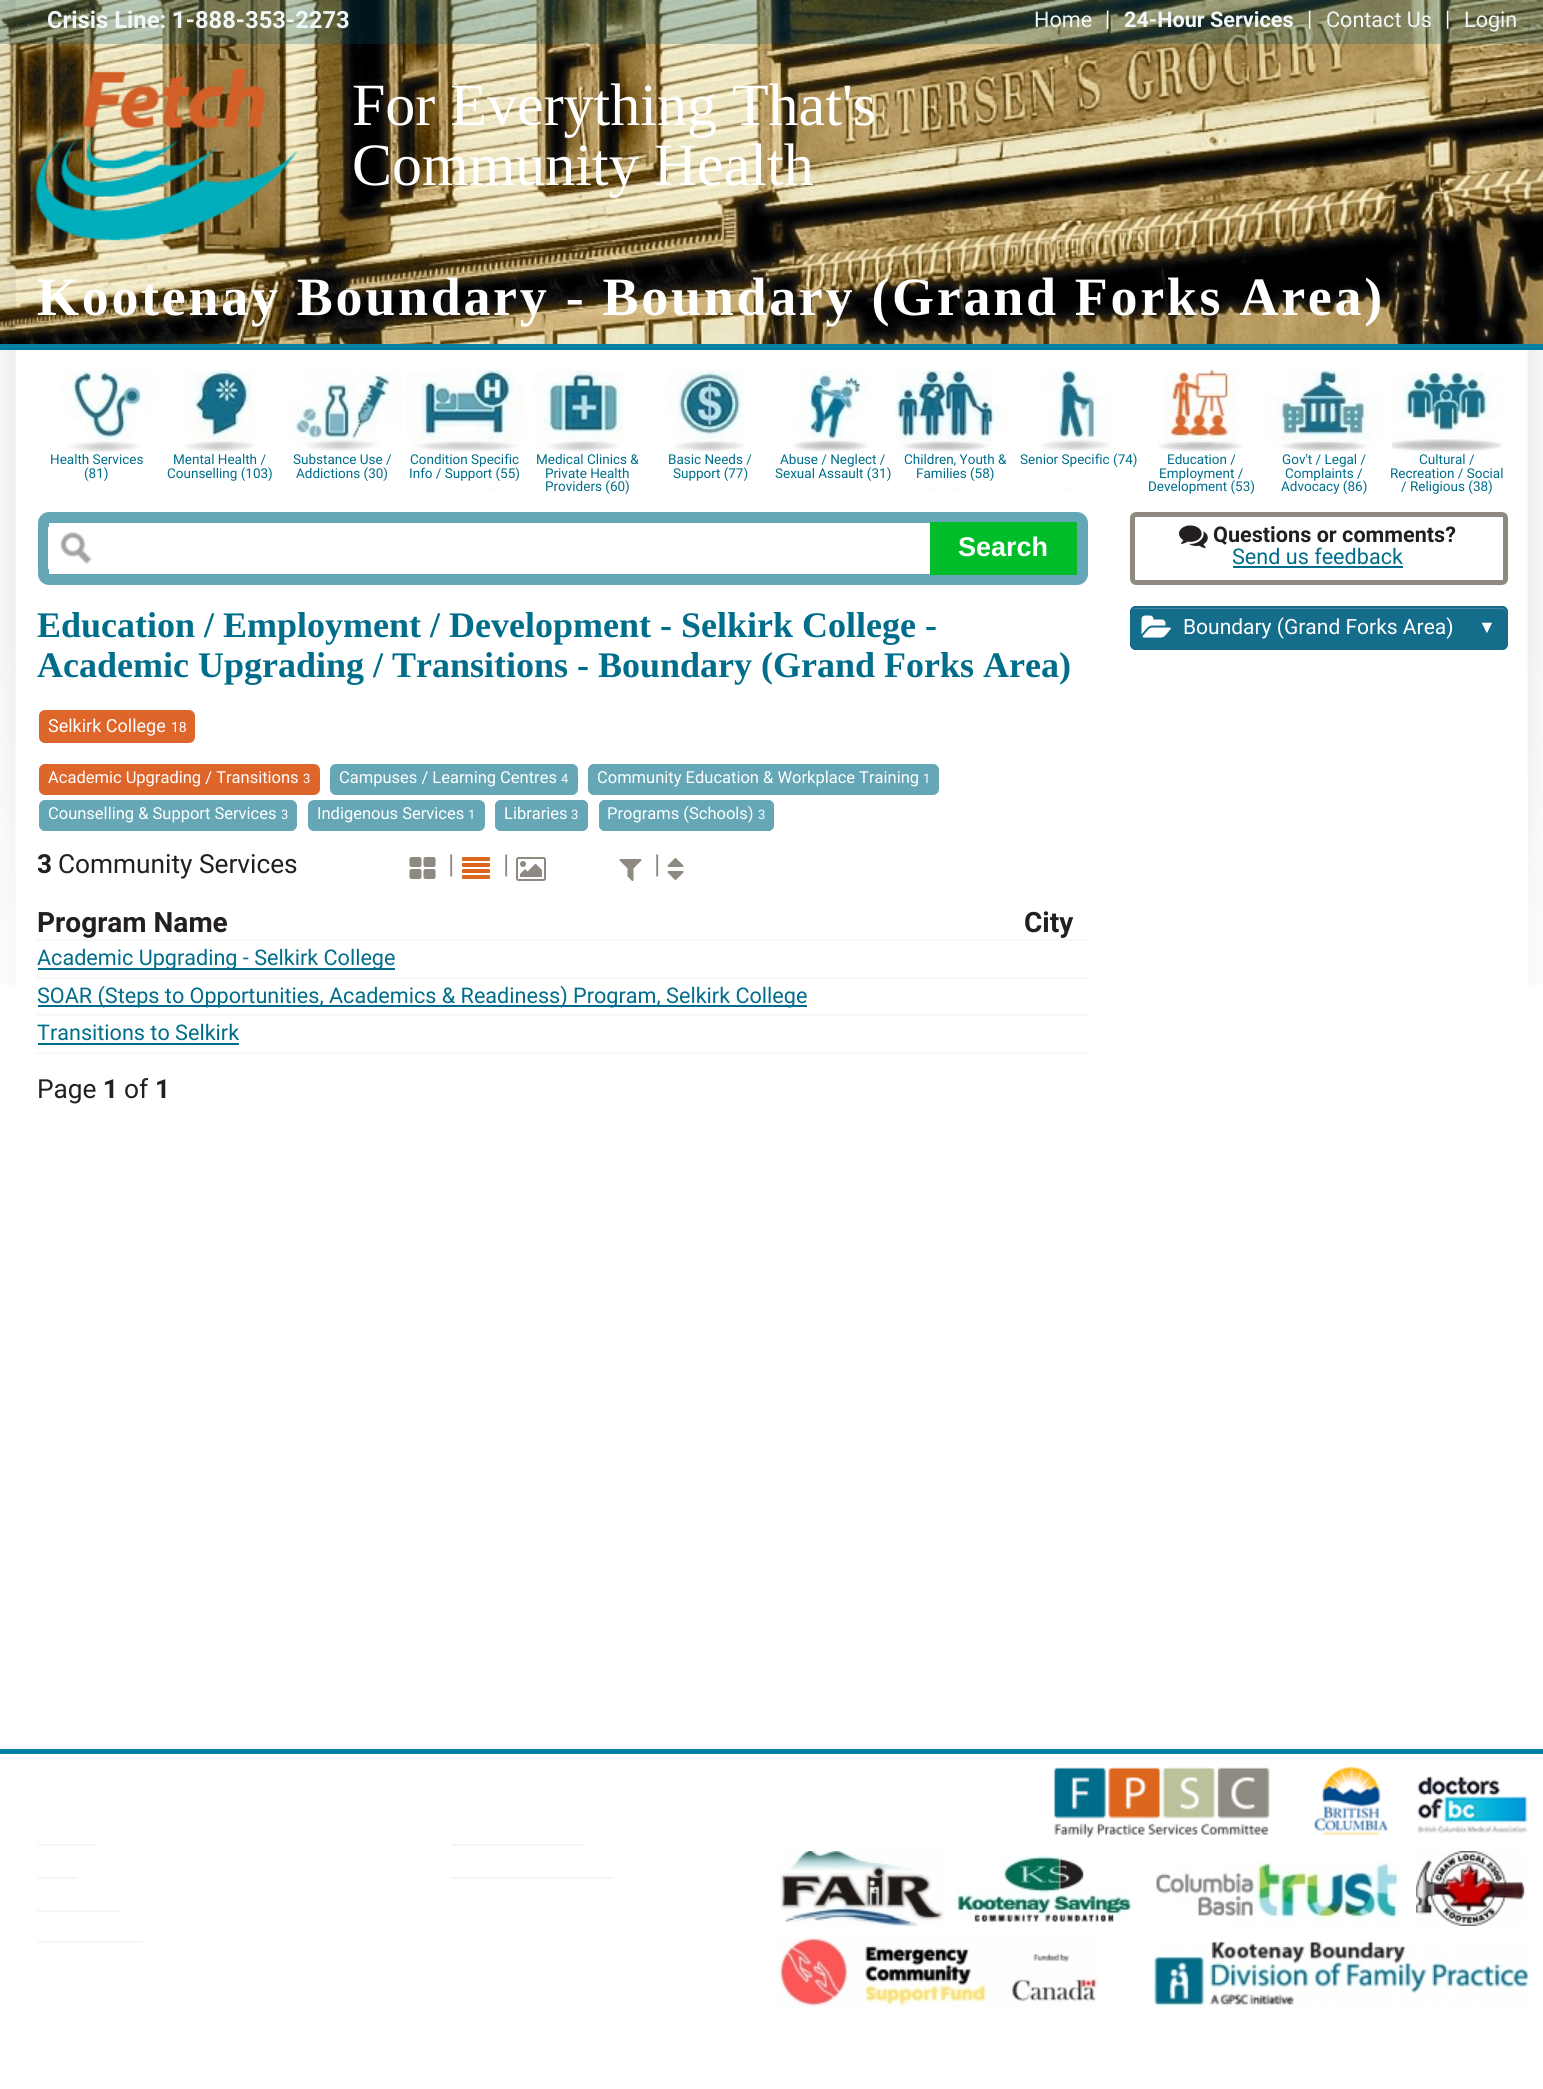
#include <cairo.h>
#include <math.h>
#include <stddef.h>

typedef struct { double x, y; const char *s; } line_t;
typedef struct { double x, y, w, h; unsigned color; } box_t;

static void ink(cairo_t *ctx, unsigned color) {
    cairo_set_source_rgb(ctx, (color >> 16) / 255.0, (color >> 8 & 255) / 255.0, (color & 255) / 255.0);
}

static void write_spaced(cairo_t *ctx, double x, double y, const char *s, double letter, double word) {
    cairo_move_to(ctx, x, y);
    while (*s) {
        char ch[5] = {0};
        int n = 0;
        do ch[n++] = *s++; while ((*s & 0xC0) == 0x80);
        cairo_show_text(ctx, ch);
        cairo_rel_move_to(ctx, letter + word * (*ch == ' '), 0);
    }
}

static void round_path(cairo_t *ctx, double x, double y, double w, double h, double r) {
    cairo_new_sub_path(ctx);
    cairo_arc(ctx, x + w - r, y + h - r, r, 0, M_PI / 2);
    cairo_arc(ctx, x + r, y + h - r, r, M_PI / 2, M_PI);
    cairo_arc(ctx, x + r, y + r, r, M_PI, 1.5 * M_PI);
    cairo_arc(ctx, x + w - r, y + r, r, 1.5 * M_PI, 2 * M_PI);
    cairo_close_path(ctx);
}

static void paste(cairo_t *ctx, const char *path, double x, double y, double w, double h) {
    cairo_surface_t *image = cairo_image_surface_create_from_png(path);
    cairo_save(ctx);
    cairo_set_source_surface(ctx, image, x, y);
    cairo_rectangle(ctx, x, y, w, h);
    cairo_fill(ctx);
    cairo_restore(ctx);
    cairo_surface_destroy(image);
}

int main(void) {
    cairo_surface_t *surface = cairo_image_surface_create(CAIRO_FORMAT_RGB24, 1543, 2089);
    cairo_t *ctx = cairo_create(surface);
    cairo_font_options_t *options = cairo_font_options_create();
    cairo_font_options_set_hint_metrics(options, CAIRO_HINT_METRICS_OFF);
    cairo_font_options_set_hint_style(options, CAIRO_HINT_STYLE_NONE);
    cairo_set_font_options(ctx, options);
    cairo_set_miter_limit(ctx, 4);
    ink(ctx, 0xFFFFFF);
    cairo_paint(ctx);
    paste(ctx, "media/1.png", 0, 0, 1543, 344);
    paste(ctx, "media/2.png", 0, 0, 1543, 985);
    cairo_set_source_rgba(ctx, 0, 0.345, 0.439, 0.25);
    cairo_rectangle(ctx, 0, 0, 1543, 44);
    cairo_fill(ctx);
    cairo_select_font_face(ctx, "Roboto", CAIRO_FONT_SLANT_NORMAL, CAIRO_FONT_WEIGHT_BOLD);
    cairo_set_font_size(ctx, 23.75);
    ink(ctx, 0xF1F7F8);
    cairo_move_to(ctx, 47, 28);
    cairo_show_text(ctx, "Crisis Line: 1-888-353-2273");
    cairo_select_font_face(ctx, "Roboto", CAIRO_FONT_SLANT_NORMAL, CAIRO_FONT_WEIGHT_NORMAL);
    cairo_set_font_size(ctx, 21.6);
    cairo_move_to(ctx, 1034, 27);
    cairo_show_text(ctx, "Home");
    ink(ctx, 0xFFFFFF);
    cairo_move_to(ctx, 1105, 26);
    cairo_show_text(ctx, "|");
    cairo_select_font_face(ctx, "Roboto", CAIRO_FONT_SLANT_NORMAL, CAIRO_FONT_WEIGHT_BOLD);
    ink(ctx, 0xF1F7F8);
    cairo_move_to(ctx, 1124, 27);
    cairo_show_text(ctx, "24-Hour Services");
    cairo_select_font_face(ctx, "Roboto", CAIRO_FONT_SLANT_NORMAL, CAIRO_FONT_WEIGHT_NORMAL);
    ink(ctx, 0xFFFFFF);
    cairo_move_to(ctx, 1307, 26);
    cairo_show_text(ctx, "|");
    ink(ctx, 0xF1F7F8);
    cairo_move_to(ctx, 1326, 27);
    cairo_show_text(ctx, "Contact Us");
    ink(ctx, 0xFFFFFF);
    cairo_move_to(ctx, 1445, 26);
    cairo_show_text(ctx, "|");
    ink(ctx, 0xF1F7F8);
    cairo_move_to(ctx, 1464, 27);
    cairo_show_text(ctx, "Login");
    paste(ctx, "media/3.png", 35, 68, 263, 173);
    cairo_select_font_face(ctx, "Liberation Serif", CAIRO_FONT_SLANT_NORMAL, CAIRO_FONT_WEIGHT_NORMAL);
    cairo_set_font_size(ctx, 60);
    ink(ctx, 0xFFFFFF);
    cairo_move_to(ctx, 352, 125);
    cairo_show_text(ctx, "For Everything That's");
    cairo_move_to(ctx, 352, 185);
    cairo_show_text(ctx, "Community Health");
    cairo_select_font_face(ctx, "Liberation Serif", CAIRO_FONT_SLANT_NORMAL, CAIRO_FONT_WEIGHT_BOLD);
    cairo_set_font_size(ctx, 54);
    write_spaced(ctx, 37, 315, "Kootenay Boundary - Boundary (Grand Forks Area)", 2.7, 0);
    ink(ctx, 0x0080A3);
    cairo_rectangle(ctx, 0, 344, 1543, 6);
    cairo_fill(ctx);
    paste(ctx, "media/4.png", 61, 370, 96, 82);
    cairo_select_font_face(ctx, "Roboto", CAIRO_FONT_SLANT_NORMAL, CAIRO_FONT_WEIGHT_NORMAL);
    cairo_set_font_size(ctx, 13.5);
    ink(ctx, 0x006D8A);
    cairo_move_to(ctx, 50, 464);
    cairo_show_text(ctx, "Health Services");
    cairo_move_to(ctx, 84, 478);
    cairo_show_text(ctx, "(81)");
    paste(ctx, "media/5.png", 183, 370, 72, 120);
    cairo_move_to(ctx, 173, 464);
    cairo_show_text(ctx, "Mental Health /");
    cairo_move_to(ctx, 167, 478);
    cairo_show_text(ctx, "Counselling (103)");
    paste(ctx, "media/6.png", 284, 370, 118, 81);
    cairo_move_to(ctx, 293, 464);
    cairo_show_text(ctx, "Substance Use /");
    cairo_move_to(ctx, 296, 478);
    cairo_show_text(ctx, "Addictions (30)");
    paste(ctx, "media/7.png", 405, 370, 120, 121);
    cairo_move_to(ctx, 410, 464);
    cairo_show_text(ctx, "Condition Specific");
    cairo_move_to(ctx, 409, 478);
    cairo_show_text(ctx, "Info / Support (55)");
    paste(ctx, "media/8.png", 534, 370, 90, 82);
    {
        static const line_t items[] = {
            {536, 464, "Medical Clinics &"},
            {545, 478, "Private Health"},
            {545, 491, "Providers (60)"},
        };
        for (size_t i = 0; i < sizeof items / sizeof *items; i++) {
            cairo_move_to(ctx, items[i].x, items[i].y);
            cairo_show_text(ctx, items[i].s);
        }
    }
    paste(ctx, "media/9.png", 668, 370, 77, 82);
    cairo_move_to(ctx, 668, 464);
    cairo_show_text(ctx, "Basic Needs /");
    cairo_move_to(ctx, 673, 478);
    cairo_show_text(ctx, "Support (77)");
    paste(ctx, "media/10.png", 793, 370, 76, 82);
    cairo_move_to(ctx, 780, 464);
    cairo_show_text(ctx, "Abuse / Neglect /");
    cairo_move_to(ctx, 775, 478);
    cairo_show_text(ctx, "Sexual Assault (31)");
    paste(ctx, "media/11.png", 895, 370, 114, 121);
    cairo_move_to(ctx, 904, 464);
    cairo_show_text(ctx, "Children, Youth &");
    cairo_move_to(ctx, 916, 478);
    cairo_show_text(ctx, "Families (58)");
    paste(ctx, "media/12.png", 1040, 370, 74, 121);
    cairo_move_to(ctx, 1020, 464);
    cairo_show_text(ctx, "Senior Specific (74)");
    paste(ctx, "media/13.png", 1158, 370, 85, 82);
    {
        static const line_t items[] = {
            {1167, 464, "Education /"},
            {1159, 478, "Employment /"},
            {1148, 491, "Development (53)"},
        };
        for (size_t i = 0; i < sizeof items / sizeof *items; i++) {
            cairo_move_to(ctx, items[i].x, items[i].y);
            cairo_show_text(ctx, items[i].s);
        }
    }
    paste(ctx, "media/14.png", 1263, 370, 120, 121);
    {
        static const line_t items[] = {
            {1282, 464, "Gov't / Legal /"},
            {1285, 478, "Complaints /"},
            {1281, 491, "Advocacy (86)"},
        };
        for (size_t i = 0; i < sizeof items / sizeof *items; i++) {
            cairo_move_to(ctx, items[i].x, items[i].y);
            cairo_show_text(ctx, items[i].s);
        }
    }
    paste(ctx, "media/15.png", 1391, 370, 111, 82);
    {
        static const line_t items[] = {
            {1419, 464, "Cultural /"},
            {1390, 478, "Recreation / Social"},
            {1401, 491, "/ Religious (38)"},
        };
        for (size_t i = 0; i < sizeof items / sizeof *items; i++) {
            cairo_move_to(ctx, items[i].x, items[i].y);
            cairo_show_text(ctx, items[i].s);
        }
    }
    round_path(ctx, 43.5, 517.5, 1039, 62, 5.5);
    ink(ctx, 0x65A7B7);
    cairo_set_line_width(ctx, 11);
    cairo_stroke(ctx);
    ink(ctx, 0xFFFFFF);
    cairo_rectangle(ctx, 48, 527, 1, 42);
    cairo_fill(ctx);
    paste(ctx, "media/16.png", 60, 532, 32, 33);
    ink(ctx, 0x00BD29);
    cairo_rectangle(ctx, 930, 522, 147, 53);
    cairo_fill(ctx);
    cairo_select_font_face(ctx, "Liberation Sans", CAIRO_FONT_SLANT_NORMAL, CAIRO_FONT_WEIGHT_BOLD);
    cairo_set_font_size(ctx, 27);
    ink(ctx, 0xFFFFFF);
    cairo_move_to(ctx, 958, 556);
    cairo_show_text(ctx, "Search");
    round_path(ctx, 1132.5, 514.5, 373, 68, 3.5);
    ink(ctx, 0x8E8981);
    cairo_set_line_width(ctx, 5);
    cairo_stroke(ctx);
    paste(ctx, "media/17.png", 1179, 525, 29, 23);
    cairo_select_font_face(ctx, "Roboto", CAIRO_FONT_SLANT_NORMAL, CAIRO_FONT_WEIGHT_BOLD);
    cairo_set_font_size(ctx, 21.6);
    ink(ctx, 0x231F20);
    cairo_move_to(ctx, 1213, 542);
    cairo_show_text(ctx, "Questions or comments?");
    cairo_select_font_face(ctx, "Roboto", CAIRO_FONT_SLANT_NORMAL, CAIRO_FONT_WEIGHT_NORMAL);
    ink(ctx, 0x006D8A);
    cairo_move_to(ctx, 1232, 564);
    cairo_show_text(ctx, "Send us feedback");
    cairo_rectangle(ctx, 1233, 566, 170, 2);
    cairo_fill(ctx);
    cairo_select_font_face(ctx, "Liberation Serif", CAIRO_FONT_SLANT_NORMAL, CAIRO_FONT_WEIGHT_BOLD);
    cairo_set_font_size(ctx, 36);
    cairo_move_to(ctx, 37, 637);
    cairo_show_text(ctx, "Education / Employment / Development - Selkirk College -");
    cairo_move_to(ctx, 37, 677);
    cairo_show_text(ctx, "Academic Upgrading / Transitions - Boundary (Grand Forks Area)");
    ink(ctx, 0xDE662A);
    round_path(ctx, 40, 711, 154, 31, 5);
    cairo_fill_preserve(ctx);
    cairo_set_line_width(ctx, 2);
    cairo_stroke(ctx);
    cairo_select_font_face(ctx, "Roboto", CAIRO_FONT_SLANT_NORMAL, CAIRO_FONT_WEIGHT_NORMAL);
    cairo_set_font_size(ctx, 18);
    ink(ctx, 0xFFFFFF);
    cairo_move_to(ctx, 48, 732);
    cairo_show_text(ctx, "Selkirk College");
    cairo_set_font_size(ctx, 14);
    cairo_move_to(ctx, 171, 732);
    cairo_show_text(ctx, "18");
    ink(ctx, 0xDE662A);
    round_path(ctx, 40, 765, 279, 29, 5);
    cairo_fill_preserve(ctx);
    cairo_stroke(ctx);
    cairo_set_font_size(ctx, 16.5);
    ink(ctx, 0xFFFFFF);
    cairo_move_to(ctx, 48, 783);
    cairo_show_text(ctx, "Academic Upgrading / Transitions");
    cairo_set_font_size(ctx, 13);
    cairo_move_to(ctx, 303, 783);
    cairo_show_text(ctx, "3");
    ink(ctx, 0x65A7B7);
    round_path(ctx, 331, 765, 246, 29, 5);
    cairo_fill_preserve(ctx);
    cairo_stroke(ctx);
    cairo_set_font_size(ctx, 16.5);
    ink(ctx, 0xFFFFFF);
    cairo_move_to(ctx, 339, 783);
    cairo_show_text(ctx, "Campuses / Learning Centres");
    cairo_set_font_size(ctx, 13);
    cairo_move_to(ctx, 561, 783);
    cairo_show_text(ctx, "4");
    ink(ctx, 0x65A7B7);
    round_path(ctx, 589, 765, 349, 29, 5);
    cairo_fill_preserve(ctx);
    cairo_stroke(ctx);
    cairo_set_font_size(ctx, 16.5);
    ink(ctx, 0xFFFFFF);
    cairo_move_to(ctx, 597, 783);
    cairo_show_text(ctx, "Community Education & Workplace Training");
    cairo_set_font_size(ctx, 13);
    cairo_move_to(ctx, 923, 783);
    cairo_show_text(ctx, "1");
    ink(ctx, 0x65A7B7);
    round_path(ctx, 40, 801, 256, 29, 5);
    cairo_fill_preserve(ctx);
    cairo_stroke(ctx);
    cairo_set_font_size(ctx, 16.5);
    ink(ctx, 0xFFFFFF);
    cairo_move_to(ctx, 48, 819);
    cairo_show_text(ctx, "Counselling & Support Services");
    cairo_set_font_size(ctx, 13);
    cairo_move_to(ctx, 281, 819);
    cairo_show_text(ctx, "3");
    ink(ctx, 0x65A7B7);
    round_path(ctx, 309, 801, 175, 29, 5);
    cairo_fill_preserve(ctx);
    cairo_stroke(ctx);
    cairo_set_font_size(ctx, 16.5);
    ink(ctx, 0xFFFFFF);
    cairo_move_to(ctx, 317, 819);
    cairo_show_text(ctx, "Indigenous Services");
    cairo_set_font_size(ctx, 13);
    cairo_move_to(ctx, 468, 819);
    cairo_show_text(ctx, "1");
    ink(ctx, 0x65A7B7);
    round_path(ctx, 495, 800, 93, 31, 6);
    cairo_fill(ctx);
    ink(ctx, 0x84B9C5);
    cairo_new_path(ctx);
    cairo_move_to(ctx, 500, 802);
    cairo_line_to(ctx, 569, 802);
    cairo_curve_to(ctx, 586, 802, 586, 799, 586, 813);
    cairo_line_to(ctx, 586, 829);
    cairo_curve_to(ctx, 586, 828, 587, 827, 587, 826);
    cairo_line_to(ctx, 587, 805);
    cairo_curve_to(ctx, 587, 803, 585, 801, 583, 801);
    cairo_line_to(ctx, 501, 801);
    cairo_curve_to(ctx, 500, 801, 498, 802, 498, 803);
    cairo_close_path(ctx);
    cairo_fill(ctx);
    round_path(ctx, 496, 801, 91, 29, 5);
    ink(ctx, 0x65A7B7);
    cairo_stroke(ctx);
    cairo_set_font_size(ctx, 16.5);
    ink(ctx, 0xFFFFFF);
    cairo_move_to(ctx, 504, 819);
    cairo_show_text(ctx, "Libraries");
    cairo_set_font_size(ctx, 13);
    cairo_move_to(ctx, 571, 819);
    cairo_show_text(ctx, "3");
    ink(ctx, 0x65A7B7);
    round_path(ctx, 599, 800, 175, 31, 6);
    cairo_fill(ctx);
    ink(ctx, 0x84B9C5);
    cairo_new_path(ctx);
    cairo_move_to(ctx, 604, 802);
    cairo_line_to(ctx, 769, 802);
    cairo_curve_to(ctx, 773, 802, 772, 811, 772, 813);
    cairo_line_to(ctx, 772, 829);
    cairo_curve_to(ctx, 772, 828, 773, 827, 773, 826);
    cairo_line_to(ctx, 773, 805);
    cairo_curve_to(ctx, 773, 803, 771, 801, 769, 801);
    cairo_line_to(ctx, 604, 801);
    cairo_curve_to(ctx, 602, 801, 600, 803, 600, 805);
    cairo_line_to(ctx, 600, 806);
    cairo_curve_to(ctx, 600, 804, 602, 802, 604, 802);
    cairo_close_path(ctx);
    cairo_fill(ctx);
    round_path(ctx, 600, 801, 173, 29, 5);
    ink(ctx, 0x65A7B7);
    cairo_stroke(ctx);
    cairo_set_font_size(ctx, 16.5);
    ink(ctx, 0xFFFFFF);
    cairo_move_to(ctx, 607, 819);
    cairo_show_text(ctx, "Programs (Schools)");
    cairo_set_font_size(ctx, 13);
    cairo_move_to(ctx, 758, 819);
    cairo_show_text(ctx, "3");
    cairo_save(ctx);
    cairo_rectangle(ctx, 38, 849, 1050, 36);
    cairo_clip(ctx);
    cairo_select_font_face(ctx, "Roboto", CAIRO_FONT_SLANT_NORMAL, CAIRO_FONT_WEIGHT_BOLD);
    cairo_set_font_size(ctx, 26.25);
    ink(ctx, 0x231F20);
    cairo_move_to(ctx, 37, 873);
    cairo_show_text(ctx, "3");
    cairo_restore(ctx);
    cairo_set_font_size(ctx, 26.25);
    ink(ctx, 0x231F20);
    cairo_move_to(ctx, 58, 873);
    cairo_show_text(ctx, "Community Services");
    paste(ctx, "media/18.png", 409, 857, 27, 22);
    cairo_set_font_size(ctx, 26);
    ink(ctx, 0x8E8981);
    cairo_move_to(ctx, 448, 873);
    cairo_show_text(ctx, "|");
    paste(ctx, "media/19.png", 462, 857, 28, 22);
    cairo_move_to(ctx, 503, 873);
    cairo_show_text(ctx, "|");
    paste(ctx, "media/20.png", 516, 857, 30, 24);
    paste(ctx, "media/21.png", 619, 859, 23, 22);
    cairo_move_to(ctx, 654, 873);
    cairo_show_text(ctx, "|");
    paste(ctx, "media/22.png", 667, 858, 17, 22);
    ink(ctx, 0xF7F7F7);
    cairo_rectangle(ctx, 36, 939, 1052, 2);
    cairo_fill(ctx);
    cairo_select_font_face(ctx, "Roboto", CAIRO_FONT_SLANT_NORMAL, CAIRO_FONT_WEIGHT_BOLD);
    cairo_set_font_size(ctx, 28);
    ink(ctx, 0x231F20);
    cairo_move_to(ctx, 37, 932);
    cairo_show_text(ctx, "Program Name");
    cairo_move_to(ctx, 1024, 932);
    cairo_show_text(ctx, "City");
    ink(ctx, 0xF7F7F7);
    cairo_rectangle(ctx, 36, 977, 1052, 2);
    cairo_fill(ctx);
    ink(ctx, 0x006D8A);
    cairo_rectangle(ctx, 38, 968, 357, 2);
    cairo_fill(ctx);
    cairo_select_font_face(ctx, "Roboto", CAIRO_FONT_SLANT_NORMAL, CAIRO_FONT_WEIGHT_NORMAL);
    cairo_set_font_size(ctx, 21.6);
    cairo_move_to(ctx, 37, 965);
    cairo_show_text(ctx, "Academic Upgrading - Selkirk College");
    ink(ctx, 0xF7F7F7);
    cairo_rectangle(ctx, 36, 1014, 1052, 2);
    cairo_fill(ctx);
    ink(ctx, 0x006D8A);
    cairo_rectangle(ctx, 38, 1005, 769, 2);
    cairo_fill(ctx);
    cairo_move_to(ctx, 37, 1003);
    cairo_show_text(ctx, "SOAR (Steps to Opportunities, Academics & Readiness) Program, Selkirk College");
    ink(ctx, 0xF7F7F7);
    cairo_rectangle(ctx, 36, 1052, 1052, 2);
    cairo_fill(ctx);
    ink(ctx, 0x006D8A);
    cairo_move_to(ctx, 37, 1040);
    cairo_show_text(ctx, "Transitions to Selkirk");
    cairo_rectangle(ctx, 38, 1043, 201, 2);
    cairo_fill(ctx);
    cairo_set_font_size(ctx, 26.25);
    ink(ctx, 0x231F20);
    cairo_move_to(ctx, 37, 1098);
    cairo_show_text(ctx, "Page");
    cairo_select_font_face(ctx, "Roboto", CAIRO_FONT_SLANT_NORMAL, CAIRO_FONT_WEIGHT_BOLD);
    cairo_move_to(ctx, 103, 1098);
    cairo_show_text(ctx, "1");
    cairo_select_font_face(ctx, "Roboto", CAIRO_FONT_SLANT_NORMAL, CAIRO_FONT_WEIGHT_NORMAL);
    cairo_move_to(ctx, 124, 1098);
    cairo_show_text(ctx, "of");
    cairo_select_font_face(ctx, "Roboto", CAIRO_FONT_SLANT_NORMAL, CAIRO_FONT_WEIGHT_BOLD);
    cairo_move_to(ctx, 155, 1098);
    cairo_show_text(ctx, "1");
    ink(ctx, 0x146D8B);
    round_path(ctx, 1130, 606, 378, 44, 6);
    cairo_fill(ctx);
    ink(ctx, 0x438AA2);
    cairo_new_path(ctx);
    cairo_move_to(ctx, 1136, 609);
    cairo_line_to(ctx, 1502, 609);
    cairo_curve_to(ctx, 1504, 609, 1506, 611, 1506, 614);
    cairo_line_to(ctx, 1506, 613);
    cairo_curve_to(ctx, 1506, 610, 1504, 608, 1501, 608);
    cairo_line_to(ctx, 1136, 608);
    cairo_curve_to(ctx, 1133, 608, 1131, 610, 1131, 613);
    cairo_line_to(ctx, 1131, 614);
    cairo_curve_to(ctx, 1131, 611, 1133, 609, 1136, 609);
    cairo_close_path(ctx);
    cairo_fill(ctx);
    round_path(ctx, 1131, 607, 376, 42, 5);
    ink(ctx, 0x146D8B);
    cairo_stroke(ctx);
    paste(ctx, "media/23.png", 1141, 615, 30, 23);
    cairo_select_font_face(ctx, "Roboto", CAIRO_FONT_SLANT_NORMAL, CAIRO_FONT_WEIGHT_NORMAL);
    cairo_set_font_size(ctx, 21);
    ink(ctx, 0xFFFFFF);
    cairo_move_to(ctx, 1183, 634);
    cairo_show_text(ctx, "Boundary (Grand Forks Area)");
    cairo_select_font_face(ctx, "Liberation Sans", CAIRO_FONT_SLANT_NORMAL, CAIRO_FONT_WEIGHT_BOLD);
    cairo_set_font_size(ctx, 18);
    cairo_move_to(ctx, 1478, 633);
    cairo_show_text(ctx, "▼");
    {
        static const box_t items[] = {
            {0, 1749, 1543, 5, 0x0080A3},
            {38, 1844, 57, 2, 0xF1F7F8},
            {38, 1877, 40, 2, 0xF1F7F8},
            {38, 1910, 82, 2, 0xF1F7F8},
            {38, 1941, 105, 2, 0xF1F7F8},
            {452, 1844, 132, 2, 0xF1F7F8},
            {452, 1877, 162, 2, 0xF1F7F8},
        };
        for (size_t i = 0; i < sizeof items / sizeof *items; i++) {
            ink(ctx, items[i].color);
            cairo_rectangle(ctx, items[i].x, items[i].y, items[i].w, items[i].h);
            cairo_fill(ctx);
        }
    }
    paste(ctx, "media/24.png", 1053, 1767, 217, 71);
    paste(ctx, "media/25.png", 1313, 1766, 75, 70);
    paste(ctx, "media/26.png", 1417, 1775, 111, 59);
    paste(ctx, "media/27.png", 780, 1851, 164, 75);
    paste(ctx, "media/28.png", 955, 1854, 178, 68);
    paste(ctx, "media/29.png", 1156, 1861, 245, 65);
    paste(ctx, "media/30.png", 1416, 1851, 109, 75);
    paste(ctx, "media/31.png", 778, 1937, 319, 70);
    paste(ctx, "media/32.png", 1153, 1941, 376, 66);
    cairo_surface_write_to_png(surface, "image.png");
    cairo_font_options_destroy(options);
    cairo_destroy(ctx);
    cairo_surface_destroy(surface);
    return 0;
}
